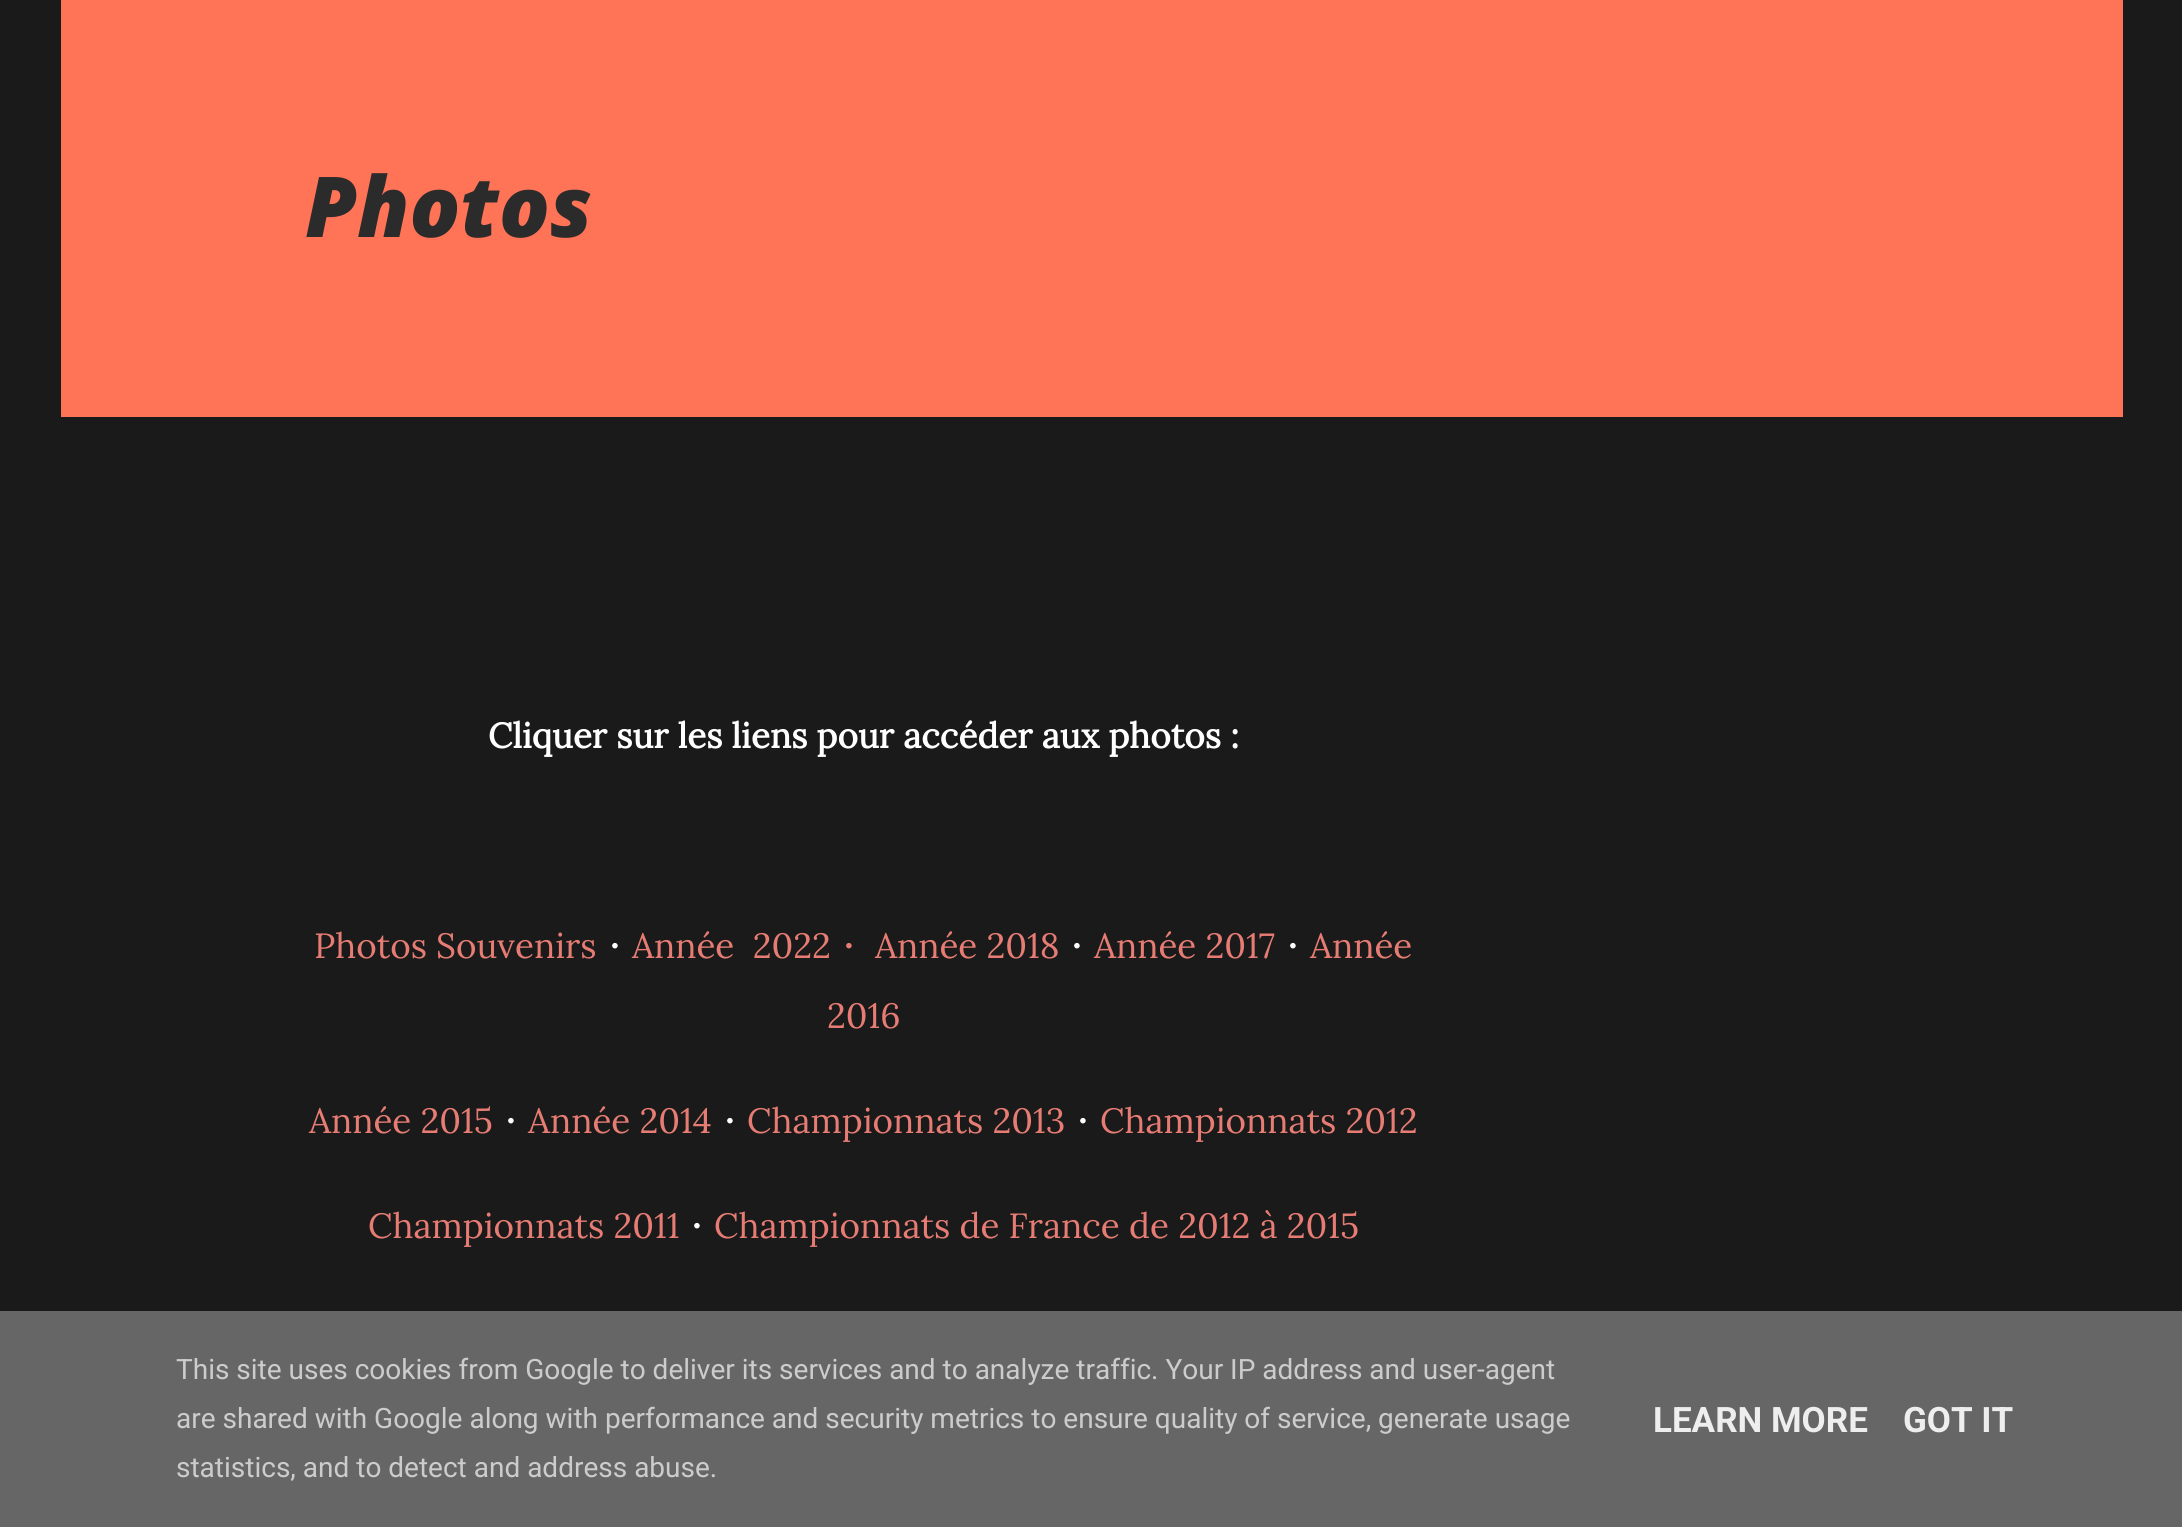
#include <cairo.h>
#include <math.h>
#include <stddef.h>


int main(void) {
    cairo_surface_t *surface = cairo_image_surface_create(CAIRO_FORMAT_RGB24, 2182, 1527);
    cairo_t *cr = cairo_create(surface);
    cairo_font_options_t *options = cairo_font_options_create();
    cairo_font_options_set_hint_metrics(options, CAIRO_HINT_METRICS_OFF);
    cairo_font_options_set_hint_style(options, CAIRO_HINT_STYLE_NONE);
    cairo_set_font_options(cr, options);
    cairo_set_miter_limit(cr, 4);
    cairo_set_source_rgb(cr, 0.102, 0.102, 0.102);
    cairo_paint(cr);
    cairo_set_source_rgb(cr, 1, 0.451, 0.341);
    cairo_rectangle(cr, 61, 0, 2062, 417);
    cairo_fill(cr);
    cairo_select_font_face(cr, "Open Sans ExtraBold", CAIRO_FONT_SLANT_ITALIC, CAIRO_FONT_WEIGHT_NORMAL);
    cairo_set_font_size(cr, 84);
    cairo_set_source_rgb(cr, 0.169, 0.169, 0.169);
    cairo_move_to(cr, 305, 237);
    cairo_show_text(cr, "Photos");
    cairo_select_font_face(cr, "Lora", CAIRO_FONT_SLANT_NORMAL, CAIRO_FONT_WEIGHT_BOLD);
    cairo_set_font_size(cr, 35);
    cairo_set_source_rgb(cr, 1, 1, 1);
    cairo_move_to(cr, 488, 748);
    cairo_show_text(cr, "Cliquer sur les liens pour accéder aux photos :");
    cairo_select_font_face(cr, "Lora", CAIRO_FONT_SLANT_NORMAL, CAIRO_FONT_WEIGHT_NORMAL);
    cairo_set_source_rgb(cr, 0.902, 0.486, 0.451);
    cairo_move_to(cr, 314, 958);
    cairo_show_text(cr, "Photos Souvenirs");
    cairo_select_font_face(cr, "WenQuanYi Zen Hei Medium", CAIRO_FONT_SLANT_NORMAL, CAIRO_FONT_WEIGHT_NORMAL);
    cairo_set_source_rgb(cr, 1, 1, 1);
    cairo_move_to(cr, 597, 958);
    cairo_show_text(cr, "・");
    cairo_select_font_face(cr, "Lora", CAIRO_FONT_SLANT_NORMAL, CAIRO_FONT_WEIGHT_NORMAL);
    cairo_set_source_rgb(cr, 0.902, 0.486, 0.451);
    cairo_move_to(cr, 632, 958);
    cairo_show_text(cr, "Année  2022");
    cairo_select_font_face(cr, "WenQuanYi Zen Hei Medium", CAIRO_FONT_SLANT_NORMAL, CAIRO_FONT_WEIGHT_NORMAL);
    cairo_move_to(cr, 831, 958);
    cairo_show_text(cr, "・");
    cairo_select_font_face(cr, "Lora", CAIRO_FONT_SLANT_NORMAL, CAIRO_FONT_WEIGHT_NORMAL);
    cairo_move_to(cr, 875, 958);
    cairo_show_text(cr, "Année 2018");
    cairo_select_font_face(cr, "WenQuanYi Zen Hei Medium", CAIRO_FONT_SLANT_NORMAL, CAIRO_FONT_WEIGHT_NORMAL);
    cairo_set_source_rgb(cr, 1, 1, 1);
    cairo_move_to(cr, 1059, 958);
    cairo_show_text(cr, "・");
    cairo_select_font_face(cr, "Lora", CAIRO_FONT_SLANT_NORMAL, CAIRO_FONT_WEIGHT_NORMAL);
    cairo_set_source_rgb(cr, 0.902, 0.486, 0.451);
    cairo_move_to(cr, 1094, 958);
    cairo_show_text(cr, "Année 2017");
    cairo_select_font_face(cr, "WenQuanYi Zen Hei Medium", CAIRO_FONT_SLANT_NORMAL, CAIRO_FONT_WEIGHT_NORMAL);
    cairo_set_source_rgb(cr, 1, 1, 1);
    cairo_move_to(cr, 1275, 958);
    cairo_show_text(cr, "・");
    cairo_select_font_face(cr, "Lora", CAIRO_FONT_SLANT_NORMAL, CAIRO_FONT_WEIGHT_NORMAL);
    cairo_set_source_rgb(cr, 0.902, 0.486, 0.451);
    cairo_move_to(cr, 1310, 958);
    cairo_show_text(cr, "Année");
    cairo_move_to(cr, 827, 1028);
    cairo_show_text(cr, "2016");
    cairo_move_to(cr, 309, 1133);
    cairo_show_text(cr, "Année 2015");
    cairo_select_font_face(cr, "WenQuanYi Zen Hei Medium", CAIRO_FONT_SLANT_NORMAL, CAIRO_FONT_WEIGHT_NORMAL);
    cairo_set_source_rgb(cr, 1, 1, 1);
    cairo_move_to(cr, 493, 1133);
    cairo_show_text(cr, "・");
    cairo_select_font_face(cr, "Lora", CAIRO_FONT_SLANT_NORMAL, CAIRO_FONT_WEIGHT_NORMAL);
    cairo_set_source_rgb(cr, 0.902, 0.486, 0.451);
    cairo_move_to(cr, 528, 1133);
    cairo_show_text(cr, "Année 2014");
    cairo_select_font_face(cr, "WenQuanYi Zen Hei Medium", CAIRO_FONT_SLANT_NORMAL, CAIRO_FONT_WEIGHT_NORMAL);
    cairo_set_source_rgb(cr, 1, 1, 1);
    cairo_move_to(cr, 712, 1133);
    cairo_show_text(cr, "・");
    cairo_select_font_face(cr, "Lora", CAIRO_FONT_SLANT_NORMAL, CAIRO_FONT_WEIGHT_NORMAL);
    cairo_set_source_rgb(cr, 0.902, 0.486, 0.451);
    cairo_move_to(cr, 747, 1133);
    cairo_show_text(cr, "Championnats 2013");
    cairo_select_font_face(cr, "WenQuanYi Zen Hei Medium", CAIRO_FONT_SLANT_NORMAL, CAIRO_FONT_WEIGHT_NORMAL);
    cairo_set_source_rgb(cr, 1, 1, 1);
    cairo_move_to(cr, 1065, 1133);
    cairo_show_text(cr, "・");
    cairo_select_font_face(cr, "Lora", CAIRO_FONT_SLANT_NORMAL, CAIRO_FONT_WEIGHT_NORMAL);
    cairo_set_source_rgb(cr, 0.902, 0.486, 0.451);
    cairo_move_to(cr, 1100, 1133);
    cairo_show_text(cr, "Championnats 2012");
    cairo_move_to(cr, 368, 1238);
    cairo_show_text(cr, "Championnats 2011");
    cairo_select_font_face(cr, "WenQuanYi Zen Hei Medium", CAIRO_FONT_SLANT_NORMAL, CAIRO_FONT_WEIGHT_NORMAL);
    cairo_set_source_rgb(cr, 1, 1, 1);
    cairo_move_to(cr, 679, 1238);
    cairo_show_text(cr, "・");
    cairo_select_font_face(cr, "Lora", CAIRO_FONT_SLANT_NORMAL, CAIRO_FONT_WEIGHT_NORMAL);
    cairo_set_source_rgb(cr, 0.902, 0.486, 0.451);
    cairo_move_to(cr, 714, 1238);
    cairo_show_text(cr, "Championnats de France de 2012 à 2015");
    cairo_set_source_rgb(cr, 0.4, 0.4, 0.4);
    cairo_rectangle(cr, 0, 1311, 2182, 216);
    cairo_fill(cr);
    cairo_select_font_face(cr, "Roboto", CAIRO_FONT_SLANT_NORMAL, CAIRO_FONT_WEIGHT_NORMAL);
    cairo_set_font_size(cr, 28);
    cairo_set_source_rgb(cr, 0.8, 0.8, 0.8);
    cairo_move_to(cr, 176, 1379);
    cairo_show_text(cr, "This site uses cookies from Google to deliver its services and to analyze traffic. Your IP address and user-agent");
    cairo_move_to(cr, 176, 1428);
    cairo_show_text(cr, "are shared with Google along with performance and security metrics to ensure quality of service, generate usage");
    cairo_move_to(cr, 176, 1477);
    cairo_show_text(cr, "statistics, and to detect and address abuse.");
    cairo_select_font_face(cr, "Roboto", CAIRO_FONT_SLANT_NORMAL, CAIRO_FONT_WEIGHT_BOLD);
    cairo_set_font_size(cr, 35);
    cairo_set_source_rgb(cr, 0.933, 0.933, 0.933);
    cairo_move_to(cr, 1653, 1432);
    cairo_show_text(cr, "LEARN MORE");
    cairo_move_to(cr, 1903, 1432);
    cairo_show_text(cr, "GOT IT");
    cairo_surface_write_to_png(surface, "page.png");
    cairo_font_options_destroy(options);
    cairo_destroy(cr);
    cairo_surface_destroy(surface);
    return 0;
}
